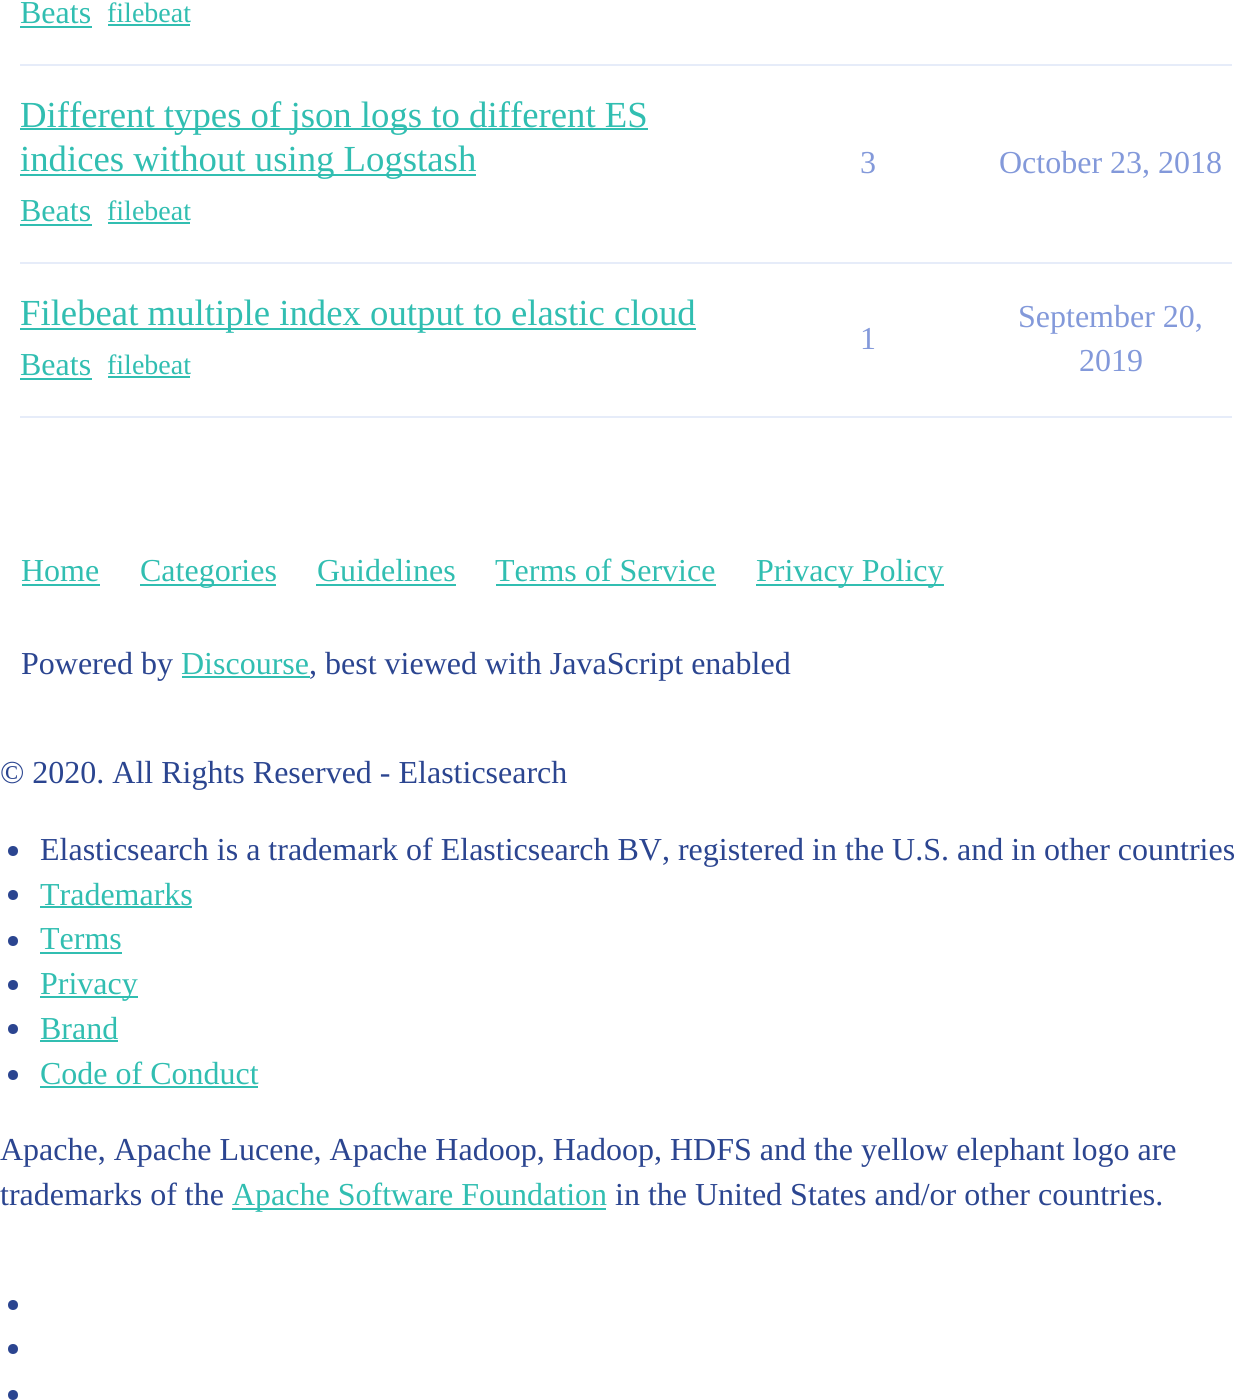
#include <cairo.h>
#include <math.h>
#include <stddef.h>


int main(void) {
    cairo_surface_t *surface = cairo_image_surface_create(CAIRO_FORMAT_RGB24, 1251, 1400);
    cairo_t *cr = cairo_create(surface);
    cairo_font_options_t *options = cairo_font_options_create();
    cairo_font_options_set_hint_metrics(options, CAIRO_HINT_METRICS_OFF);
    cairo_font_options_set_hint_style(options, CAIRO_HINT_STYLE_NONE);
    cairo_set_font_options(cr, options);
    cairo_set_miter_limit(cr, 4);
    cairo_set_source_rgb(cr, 1, 1, 1);
    cairo_paint(cr);
    cairo_set_source_rgb(cr, 0.902, 0.922, 0.973);
    cairo_rectangle(cr, 20, 64, 1212, 2);
    cairo_fill(cr);
    cairo_select_font_face(cr, "Liberation Serif", CAIRO_FONT_SLANT_NORMAL, CAIRO_FONT_WEIGHT_NORMAL);
    cairo_set_font_size(cr, 32);
    cairo_set_source_rgb(cr, 0.192, 0.745, 0.694);
    cairo_move_to(cr, 20, 23);
    cairo_show_text(cr, "Beats");
    cairo_rectangle(cr, 20, 26, 72, 2);
    cairo_fill(cr);
    cairo_set_font_size(cr, 28);
    cairo_move_to(cr, 107, 22);
    cairo_show_text(cr, "filebeat");
    cairo_rectangle(cr, 108, 24, 82, 2);
    cairo_fill(cr);
    cairo_set_source_rgb(cr, 0.902, 0.922, 0.973);
    cairo_rectangle(cr, 20, 262, 1212, 2);
    cairo_fill(cr);
    cairo_set_source_rgb(cr, 0.192, 0.745, 0.694);
    cairo_rectangle(cr, 20, 128, 628, 2);
    cairo_fill(cr);
    cairo_set_font_size(cr, 36.75);
    cairo_move_to(cr, 20, 127);
    cairo_show_text(cr, "Different types of json logs to different ES");
    cairo_rectangle(cr, 20, 174, 456, 2);
    cairo_fill(cr);
    cairo_move_to(cr, 20, 171);
    cairo_show_text(cr, "indices without using Logstash");
    cairo_set_font_size(cr, 32);
    cairo_move_to(cr, 20, 221);
    cairo_show_text(cr, "Beats");
    cairo_rectangle(cr, 20, 224, 72, 2);
    cairo_fill(cr);
    cairo_set_font_size(cr, 28);
    cairo_move_to(cr, 107, 220);
    cairo_show_text(cr, "filebeat");
    cairo_rectangle(cr, 108, 222, 82, 2);
    cairo_fill(cr);
    cairo_set_font_size(cr, 32);
    cairo_set_source_rgb(cr, 0.514, 0.6, 0.855);
    cairo_move_to(cr, 860, 173);
    cairo_show_text(cr, "3");
    cairo_move_to(cr, 999, 173);
    cairo_show_text(cr, "October 23, 2018");
    cairo_set_source_rgb(cr, 0.902, 0.922, 0.973);
    cairo_rectangle(cr, 20, 416, 1212, 2);
    cairo_fill(cr);
    cairo_set_source_rgb(cr, 0.192, 0.745, 0.694);
    cairo_rectangle(cr, 20, 328, 676, 2);
    cairo_fill(cr);
    cairo_set_font_size(cr, 36.75);
    cairo_move_to(cr, 20, 325);
    cairo_show_text(cr, "Filebeat multiple index output to elastic cloud");
    cairo_set_font_size(cr, 32);
    cairo_move_to(cr, 20, 375);
    cairo_show_text(cr, "Beats");
    cairo_rectangle(cr, 20, 378, 72, 2);
    cairo_fill(cr);
    cairo_set_font_size(cr, 28);
    cairo_move_to(cr, 107, 374);
    cairo_show_text(cr, "filebeat");
    cairo_rectangle(cr, 108, 376, 82, 2);
    cairo_fill(cr);
    cairo_set_font_size(cr, 32);
    cairo_set_source_rgb(cr, 0.514, 0.6, 0.855);
    cairo_move_to(cr, 860, 349);
    cairo_show_text(cr, "1");
    cairo_move_to(cr, 1018, 327);
    cairo_show_text(cr, "September 20,");
    cairo_move_to(cr, 1079, 371);
    cairo_show_text(cr, "2019");
    cairo_set_source_rgb(cr, 0.192, 0.745, 0.694);
    cairo_move_to(cr, 21, 581);
    cairo_show_text(cr, "Home");
    cairo_rectangle(cr, 22, 584, 78, 2);
    cairo_fill(cr);
    cairo_rectangle(cr, 140, 584, 136, 2);
    cairo_fill(cr);
    cairo_move_to(cr, 140, 581);
    cairo_show_text(cr, "Categories");
    cairo_move_to(cr, 317, 581);
    cairo_show_text(cr, "Guidelines");
    cairo_rectangle(cr, 316, 584, 140, 2);
    cairo_fill(cr);
    cairo_move_to(cr, 495, 581);
    cairo_show_text(cr, "Terms of Service");
    cairo_rectangle(cr, 496, 584, 220, 2);
    cairo_fill(cr);
    cairo_rectangle(cr, 756, 584, 188, 2);
    cairo_fill(cr);
    cairo_move_to(cr, 756, 581);
    cairo_show_text(cr, "Privacy Policy");
    cairo_set_source_rgb(cr, 0.169, 0.271, 0.565);
    cairo_move_to(cr, 21, 674);
    cairo_show_text(cr, "Powered by");
    cairo_set_source_rgb(cr, 0.192, 0.745, 0.694);
    cairo_move_to(cr, 181, 674);
    cairo_show_text(cr, "Discourse");
    cairo_rectangle(cr, 182, 676, 128, 2);
    cairo_fill(cr);
    cairo_set_source_rgb(cr, 0.169, 0.271, 0.565);
    cairo_move_to(cr, 309, 674);
    cairo_show_text(cr, ", best viewed with JavaScript enabled");
    cairo_move_to(cr, 0, 783);
    cairo_show_text(cr, "© 2020. All Rights Reserved - Elasticsearch");
    cairo_new_path(cr);
    cairo_arc(cr, 13, 851, 5, 0, 2 * M_PI);
    cairo_fill(cr);
    cairo_move_to(cr, 40, 860);
    cairo_show_text(cr, "Elasticsearch is a trademark of Elasticsearch BV, registered in the U.S. and in other countries");
    cairo_new_path(cr);
    cairo_arc(cr, 13, 895, 5, 0, 2 * M_PI);
    cairo_fill(cr);
    cairo_set_source_rgb(cr, 0.192, 0.745, 0.694);
    cairo_move_to(cr, 40, 905);
    cairo_show_text(cr, "Trademarks");
    cairo_rectangle(cr, 40, 906, 152, 2);
    cairo_fill(cr);
    cairo_set_source_rgb(cr, 0.169, 0.271, 0.565);
    cairo_arc(cr, 13, 941, 5, 0, 2 * M_PI);
    cairo_fill(cr);
    cairo_set_source_rgb(cr, 0.192, 0.745, 0.694);
    cairo_move_to(cr, 40, 949);
    cairo_show_text(cr, "Terms");
    cairo_rectangle(cr, 40, 952, 82, 2);
    cairo_fill(cr);
    cairo_set_source_rgb(cr, 0.169, 0.271, 0.565);
    cairo_arc(cr, 13, 985, 5, 0, 2 * M_PI);
    cairo_fill(cr);
    cairo_set_source_rgb(cr, 0.192, 0.745, 0.694);
    cairo_rectangle(cr, 40, 996, 98, 2);
    cairo_fill(cr);
    cairo_move_to(cr, 40, 994);
    cairo_show_text(cr, "Privacy");
    cairo_set_source_rgb(cr, 0.169, 0.271, 0.565);
    cairo_new_path(cr);
    cairo_arc(cr, 13, 1029, 5, 0, 2 * M_PI);
    cairo_fill(cr);
    cairo_set_source_rgb(cr, 0.192, 0.745, 0.694);
    cairo_move_to(cr, 40, 1039);
    cairo_show_text(cr, "Brand");
    cairo_rectangle(cr, 40, 1040, 78, 2);
    cairo_fill(cr);
    cairo_set_source_rgb(cr, 0.169, 0.271, 0.565);
    cairo_arc(cr, 13, 1075, 5, 0, 2 * M_PI);
    cairo_fill(cr);
    cairo_set_source_rgb(cr, 0.192, 0.745, 0.694);
    cairo_move_to(cr, 40, 1084);
    cairo_show_text(cr, "Code of Conduct");
    cairo_rectangle(cr, 40, 1086, 218, 2);
    cairo_fill(cr);
    cairo_set_source_rgb(cr, 0.169, 0.271, 0.565);
    cairo_move_to(cr, 0, 1160);
    cairo_show_text(cr, "Apache, Apache Lucene, Apache Hadoop, Hadoop, HDFS and the yellow elephant logo are");
    cairo_move_to(cr, 0, 1205);
    cairo_show_text(cr, "trademarks of the");
    cairo_set_source_rgb(cr, 0.192, 0.745, 0.694);
    cairo_rectangle(cr, 232, 1208, 374, 2);
    cairo_fill(cr);
    cairo_move_to(cr, 232, 1205);
    cairo_show_text(cr, "Apache Software Foundation");
    cairo_set_source_rgb(cr, 0.169, 0.271, 0.565);
    cairo_move_to(cr, 615, 1205);
    cairo_show_text(cr, "in the United States and/or other countries.");
    cairo_new_path(cr);
    cairo_arc(cr, 13, 1305, 5, 0, 2 * M_PI);
    cairo_fill(cr);
    cairo_arc(cr, 13, 1349, 5, 0, 2 * M_PI);
    cairo_fill(cr);
    cairo_arc(cr, 13, 1395, 5, 0, 2 * M_PI);
    cairo_fill(cr);
    cairo_surface_write_to_png(surface, "page.png");
    cairo_font_options_destroy(options);
    cairo_destroy(cr);
    cairo_surface_destroy(surface);
    return 0;
}
